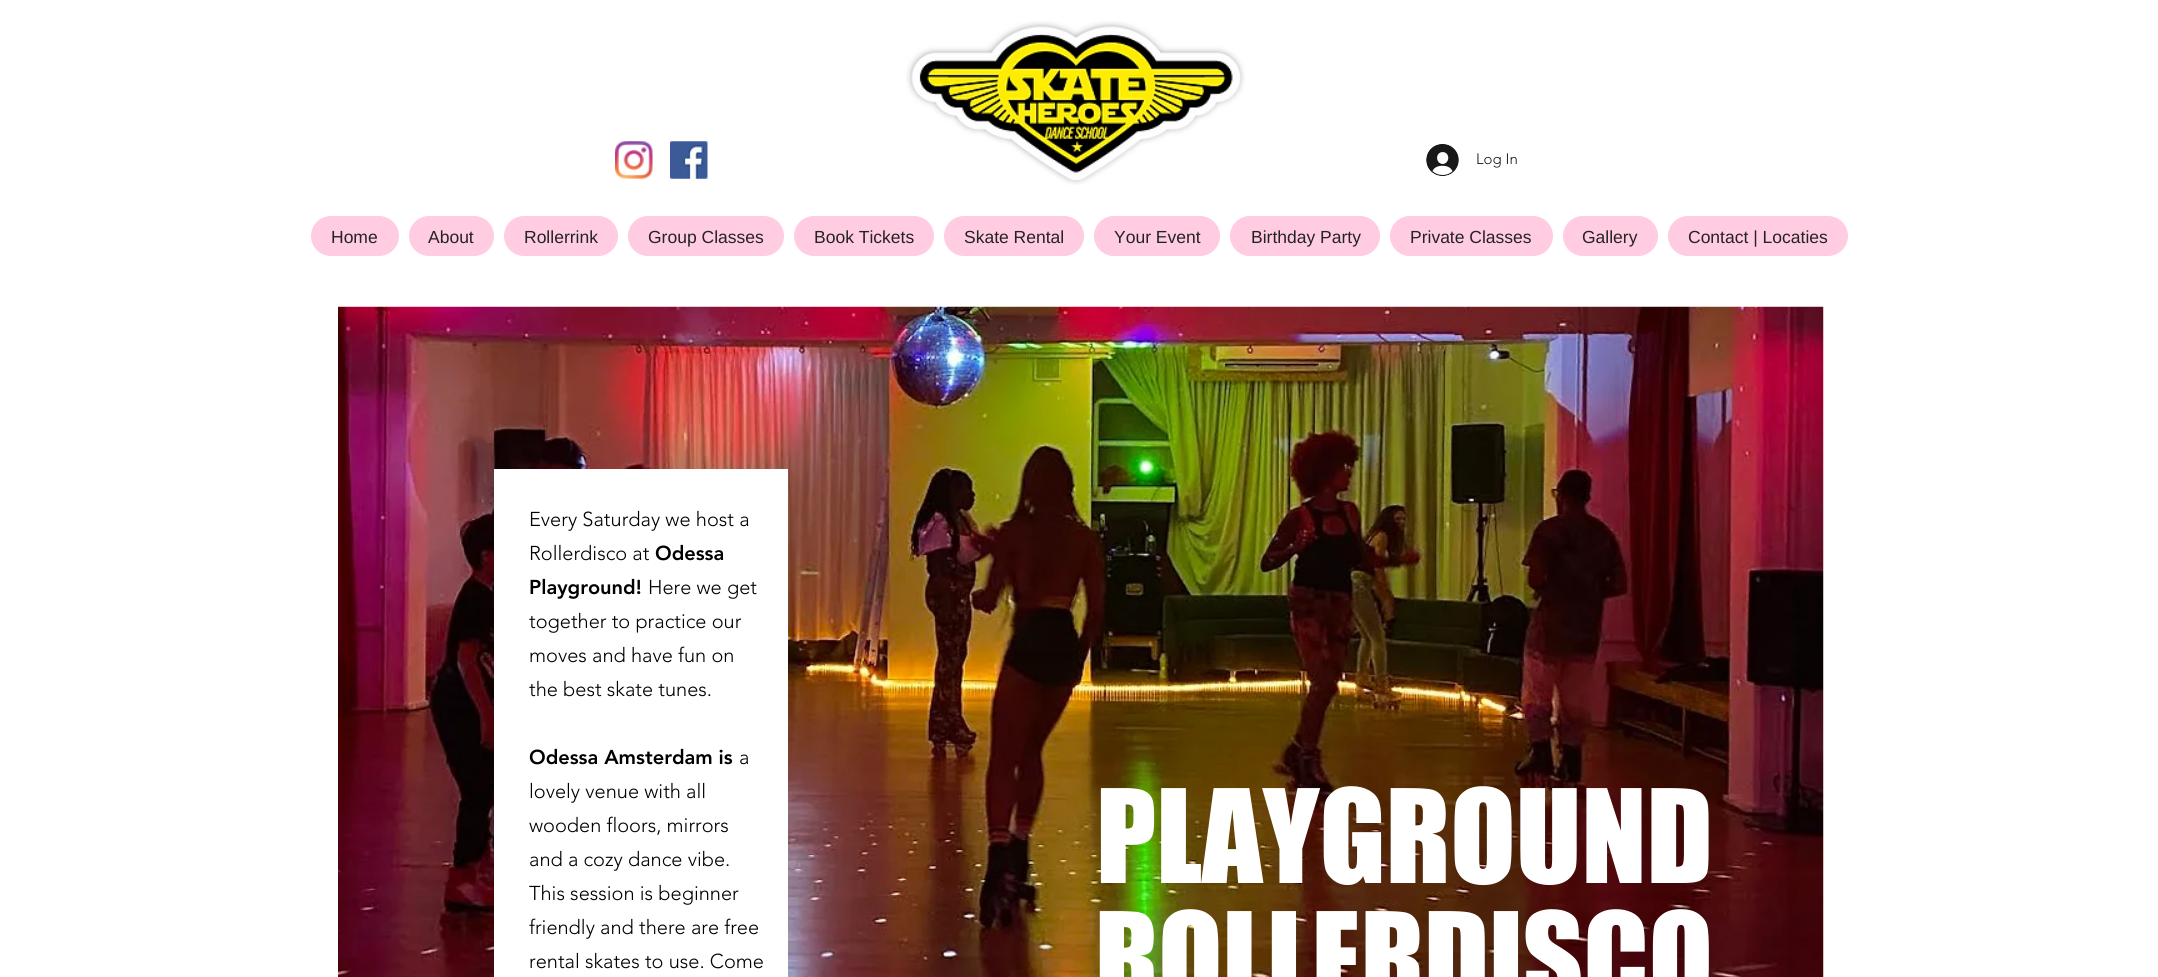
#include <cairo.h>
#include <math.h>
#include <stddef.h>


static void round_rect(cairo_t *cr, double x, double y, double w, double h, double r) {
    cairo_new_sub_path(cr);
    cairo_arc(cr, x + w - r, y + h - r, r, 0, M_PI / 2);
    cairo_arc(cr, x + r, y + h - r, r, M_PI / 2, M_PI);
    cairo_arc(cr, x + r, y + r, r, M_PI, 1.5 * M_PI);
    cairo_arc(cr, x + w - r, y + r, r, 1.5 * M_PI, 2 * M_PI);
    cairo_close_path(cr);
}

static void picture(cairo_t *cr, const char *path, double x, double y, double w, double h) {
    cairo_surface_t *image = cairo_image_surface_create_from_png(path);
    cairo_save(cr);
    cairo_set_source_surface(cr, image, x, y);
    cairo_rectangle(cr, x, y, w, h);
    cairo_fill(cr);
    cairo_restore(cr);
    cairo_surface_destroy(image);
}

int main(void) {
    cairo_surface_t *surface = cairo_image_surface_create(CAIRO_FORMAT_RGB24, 2158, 977);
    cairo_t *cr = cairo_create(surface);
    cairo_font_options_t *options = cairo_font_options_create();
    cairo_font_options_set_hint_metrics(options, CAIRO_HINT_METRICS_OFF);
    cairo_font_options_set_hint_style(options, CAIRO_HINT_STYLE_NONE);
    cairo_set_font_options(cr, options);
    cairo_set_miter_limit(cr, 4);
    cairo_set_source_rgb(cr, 1, 1, 1);
    cairo_paint(cr);
    picture(cr, "img1.png", 615, 141, 38, 38);
    picture(cr, "img2.png", 670, 141, 38, 38);
    picture(cr, "img3.png", 906, 21, 339, 164);
    picture(cr, "img4.png", 1426, 144, 33, 32);
    cairo_select_font_face(cr, "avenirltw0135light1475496 Light", CAIRO_FONT_SLANT_NORMAL, CAIRO_FONT_WEIGHT_NORMAL);
    cairo_set_font_size(cr, 15);
    cairo_set_source_rgb(cr, 0.094, 0.094, 0.094);
    cairo_move_to(cr, 1476, 164);
    cairo_show_text(cr, "Log In");
    cairo_set_source_rgb(cr, 1, 0.8, 0.886);
    round_rect(cr, 311, 216, 88, 40, 20);
    cairo_fill(cr);
    cairo_select_font_face(cr, "Liberation Sans", CAIRO_FONT_SLANT_NORMAL, CAIRO_FONT_WEIGHT_NORMAL);
    cairo_set_font_size(cr, 17.5);
    cairo_set_source_rgb(cr, 0.141, 0.137, 0.137);
    cairo_move_to(cr, 331, 243);
    cairo_show_text(cr, "Home");
    cairo_set_source_rgb(cr, 1, 0.8, 0.886);
    round_rect(cr, 409, 216, 85, 40, 20);
    cairo_fill(cr);
    cairo_set_source_rgb(cr, 0.141, 0.137, 0.137);
    cairo_move_to(cr, 428, 243);
    cairo_show_text(cr, "About");
    cairo_set_source_rgb(cr, 1, 0.8, 0.886);
    round_rect(cr, 504, 216, 114, 40, 20);
    cairo_fill(cr);
    cairo_set_source_rgb(cr, 0.141, 0.137, 0.137);
    cairo_move_to(cr, 524, 243);
    cairo_show_text(cr, "Rollerrink");
    cairo_set_source_rgb(cr, 1, 0.8, 0.886);
    round_rect(cr, 628, 216, 156, 40, 20);
    cairo_fill(cr);
    cairo_set_source_rgb(cr, 0.141, 0.137, 0.137);
    cairo_move_to(cr, 648, 243);
    cairo_show_text(cr, "Group Classes");
    cairo_set_source_rgb(cr, 1, 0.8, 0.886);
    round_rect(cr, 794, 216, 140, 40, 20);
    cairo_fill(cr);
    cairo_set_source_rgb(cr, 0.141, 0.137, 0.137);
    cairo_move_to(cr, 814, 243);
    cairo_show_text(cr, "Book Tickets");
    cairo_set_source_rgb(cr, 1, 0.8, 0.886);
    round_rect(cr, 944, 216, 140, 40, 20);
    cairo_fill(cr);
    cairo_set_source_rgb(cr, 0.141, 0.137, 0.137);
    cairo_move_to(cr, 964, 243);
    cairo_show_text(cr, "Skate Rental");
    cairo_set_source_rgb(cr, 1, 0.8, 0.886);
    round_rect(cr, 1094, 216, 126, 40, 20);
    cairo_fill(cr);
    cairo_set_source_rgb(cr, 0.141, 0.137, 0.137);
    cairo_move_to(cr, 1114, 243);
    cairo_show_text(cr, "Your Event");
    cairo_set_source_rgb(cr, 1, 0.8, 0.886);
    round_rect(cr, 1230, 216, 150, 40, 20);
    cairo_fill(cr);
    cairo_set_source_rgb(cr, 0.141, 0.137, 0.137);
    cairo_move_to(cr, 1251, 243);
    cairo_show_text(cr, "Birthday Party");
    cairo_set_source_rgb(cr, 1, 0.8, 0.886);
    round_rect(cr, 1390, 216, 163, 40, 20);
    cairo_fill(cr);
    cairo_set_source_rgb(cr, 0.141, 0.137, 0.137);
    cairo_move_to(cr, 1410, 243);
    cairo_show_text(cr, "Private Classes");
    cairo_set_source_rgb(cr, 1, 0.8, 0.886);
    round_rect(cr, 1563, 216, 95, 40, 20);
    cairo_fill(cr);
    cairo_set_source_rgb(cr, 0.141, 0.137, 0.137);
    cairo_move_to(cr, 1582, 243);
    cairo_show_text(cr, "Gallery");
    cairo_set_source_rgb(cr, 1, 0.8, 0.886);
    round_rect(cr, 1668, 216, 180, 40, 20);
    cairo_fill(cr);
    cairo_set_source_rgb(cr, 0.141, 0.137, 0.137);
    cairo_move_to(cr, 1688, 243);
    cairo_show_text(cr, "Contact | Locaties");
    picture(cr, "img5.png", 338, 306, 1486, 671);
    cairo_set_source_rgb(cr, 1, 1, 1);
    cairo_rectangle(cr, 494, 469, 294, 508);
    cairo_fill(cr);
    cairo_select_font_face(cr, "avenirltw0135light1475496 Light", CAIRO_FONT_SLANT_NORMAL, CAIRO_FONT_WEIGHT_NORMAL);
    cairo_set_font_size(cr, 20);
    cairo_set_source_rgb(cr, 0, 0, 0);
    cairo_move_to(cr, 529, 526);
    cairo_show_text(cr, "Every Saturday we host a");
    cairo_move_to(cr, 529, 560);
    cairo_show_text(cr, "Rollerdisco at");
    cairo_select_font_face(cr, "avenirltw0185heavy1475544 Black", CAIRO_FONT_SLANT_NORMAL, CAIRO_FONT_WEIGHT_NORMAL);
    cairo_move_to(cr, 655, 560);
    cairo_show_text(cr, "Odessa");
    cairo_move_to(cr, 529, 594);
    cairo_show_text(cr, "Playground!");
    cairo_select_font_face(cr, "avenirltw0135light1475496 Light", CAIRO_FONT_SLANT_NORMAL, CAIRO_FONT_WEIGHT_NORMAL);
    cairo_move_to(cr, 648, 594);
    cairo_show_text(cr, "Here we get");
    cairo_move_to(cr, 529, 628);
    cairo_show_text(cr, "together to practice our");
    cairo_move_to(cr, 529, 662);
    cairo_show_text(cr, "moves and have fun on");
    cairo_move_to(cr, 529, 696);
    cairo_show_text(cr, "the best skate tunes.");
    cairo_select_font_face(cr, "avenirltw0185heavy1475544 Black", CAIRO_FONT_SLANT_NORMAL, CAIRO_FONT_WEIGHT_NORMAL);
    cairo_move_to(cr, 529, 764);
    cairo_show_text(cr, "Odessa Amsterdam is");
    cairo_select_font_face(cr, "avenirltw0135light1475496 Light", CAIRO_FONT_SLANT_NORMAL, CAIRO_FONT_WEIGHT_NORMAL);
    cairo_move_to(cr, 739, 764);
    cairo_show_text(cr, "a");
    cairo_move_to(cr, 529, 798);
    cairo_show_text(cr, "lovely venue with all");
    cairo_move_to(cr, 529, 832);
    cairo_show_text(cr, "wooden floors, mirrors");
    cairo_move_to(cr, 529, 866);
    cairo_show_text(cr, "and a cozy dance vibe.");
    cairo_move_to(cr, 529, 900);
    cairo_show_text(cr, "This session is beginner");
    cairo_move_to(cr, 529, 934);
    cairo_show_text(cr, "friendly and there are free");
    cairo_move_to(cr, 529, 968);
    cairo_show_text(cr, "rental skates to use. Come");
    cairo_select_font_face(cr, "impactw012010", CAIRO_FONT_SLANT_NORMAL, CAIRO_FONT_WEIGHT_NORMAL);
    cairo_set_font_size(cr, 120);
    cairo_set_source_rgb(cr, 1, 1, 1);
    cairo_move_to(cr, 1096, 883);
    cairo_show_text(cr, "PLAYGROUND");
    cairo_set_font_size(cr, 117.5);
    cairo_move_to(cr, 1095, 1004);
    cairo_show_text(cr, "ROLLERDISCO");
    cairo_surface_write_to_png(surface, "page.png");
    cairo_font_options_destroy(options);
    cairo_destroy(cr);
    cairo_surface_destroy(surface);
    return 0;
}
